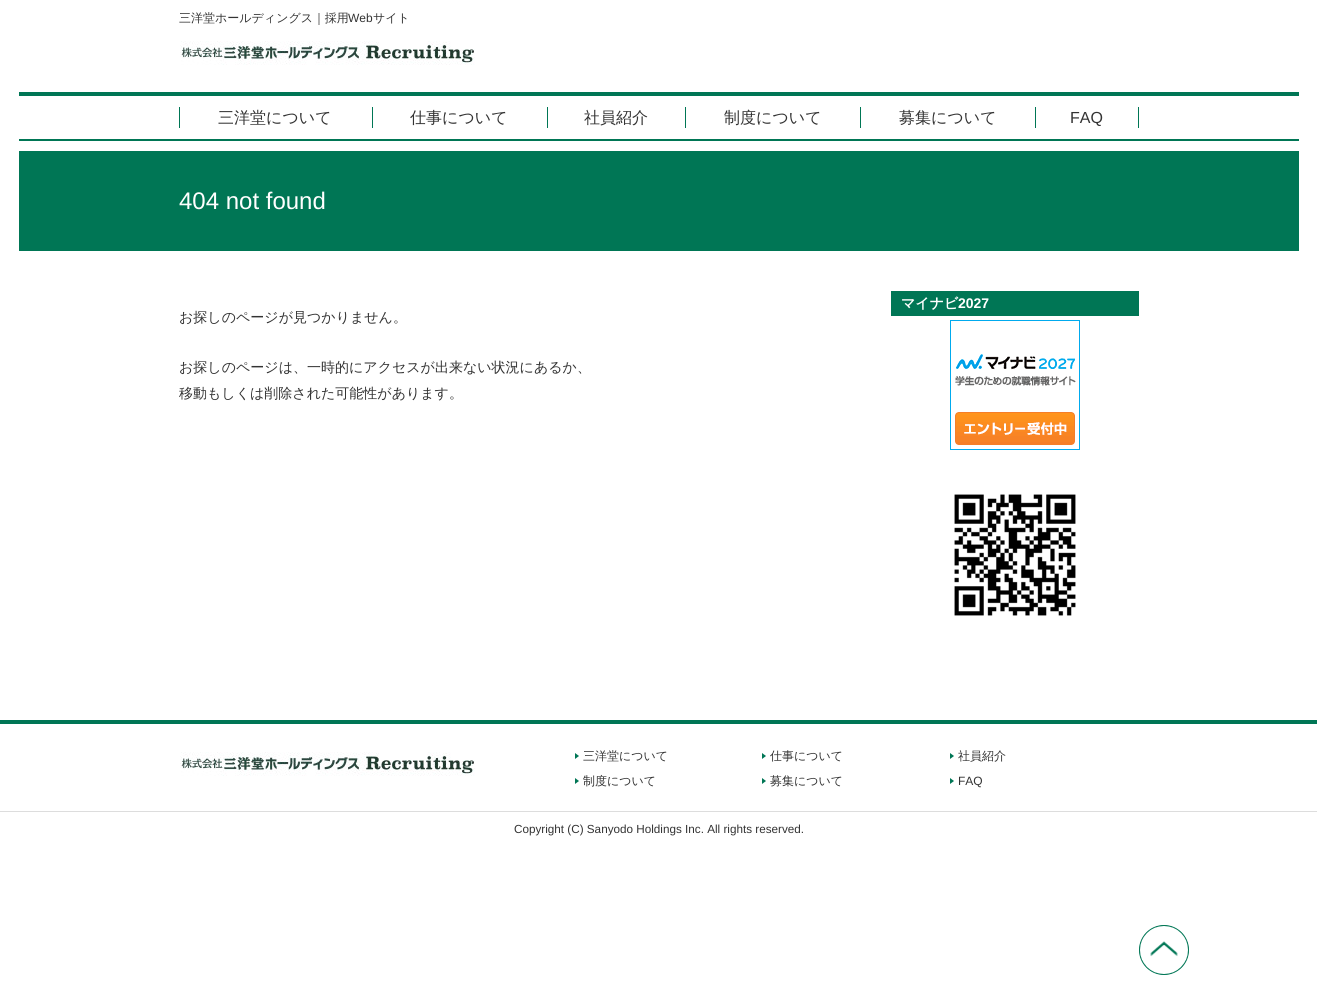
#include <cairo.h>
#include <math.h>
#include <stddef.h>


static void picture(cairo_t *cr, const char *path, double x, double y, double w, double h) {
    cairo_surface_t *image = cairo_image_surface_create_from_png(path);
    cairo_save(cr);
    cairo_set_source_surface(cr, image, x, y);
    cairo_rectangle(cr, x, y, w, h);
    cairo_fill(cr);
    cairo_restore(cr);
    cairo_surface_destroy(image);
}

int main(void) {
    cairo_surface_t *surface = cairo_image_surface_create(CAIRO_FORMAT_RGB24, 1317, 985);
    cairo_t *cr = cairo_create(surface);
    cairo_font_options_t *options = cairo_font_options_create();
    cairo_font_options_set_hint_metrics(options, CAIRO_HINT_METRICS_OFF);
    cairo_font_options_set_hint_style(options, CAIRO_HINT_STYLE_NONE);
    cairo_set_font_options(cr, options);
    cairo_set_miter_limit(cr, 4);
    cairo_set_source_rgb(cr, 1, 1, 1);
    cairo_paint(cr);
    cairo_select_font_face(cr, "WenQuanYi Zen Hei Medium", CAIRO_FONT_SLANT_NORMAL, CAIRO_FONT_WEIGHT_NORMAL);
    cairo_set_font_size(cr, 12);
    cairo_set_source_rgb(cr, 0.2, 0.2, 0.2);
    cairo_move_to(cr, 179, 22);
    cairo_show_text(cr, "三洋堂ホールディングス｜採用");
    cairo_select_font_face(cr, "Liberation Sans", CAIRO_FONT_SLANT_NORMAL, CAIRO_FONT_WEIGHT_NORMAL);
    cairo_move_to(cr, 348, 22);
    cairo_show_text(cr, "Web");
    cairo_select_font_face(cr, "WenQuanYi Zen Hei Medium", CAIRO_FONT_SLANT_NORMAL, CAIRO_FONT_WEIGHT_NORMAL);
    cairo_move_to(cr, 373, 22);
    cairo_show_text(cr, "サイト");
    picture(cr, "img1.png", 180, 41, 295, 24);
    cairo_set_source_rgb(cr, 0, 0.463, 0.333);
    cairo_rectangle(cr, 19, 92, 1280, 4);
    cairo_fill(cr);
    cairo_rectangle(cr, 19, 139, 1280, 2);
    cairo_fill(cr);
    cairo_rectangle(cr, 179, 107, 1, 21);
    cairo_fill(cr);
    cairo_set_font_size(cr, 16);
    cairo_set_source_rgb(cr, 0.2, 0.2, 0.2);
    cairo_move_to(cr, 218, 123);
    cairo_show_text(cr, "三洋堂について");
    cairo_set_source_rgb(cr, 0, 0.463, 0.333);
    cairo_rectangle(cr, 372, 107, 1, 21);
    cairo_fill(cr);
    cairo_set_source_rgb(cr, 0.2, 0.2, 0.2);
    cairo_move_to(cr, 410, 123);
    cairo_show_text(cr, "仕事について");
    cairo_set_source_rgb(cr, 0, 0.463, 0.333);
    cairo_rectangle(cr, 547, 107, 1, 21);
    cairo_fill(cr);
    cairo_set_source_rgb(cr, 0.2, 0.2, 0.2);
    cairo_move_to(cr, 584, 123);
    cairo_show_text(cr, "社員紹介");
    cairo_set_source_rgb(cr, 0, 0.463, 0.333);
    cairo_rectangle(cr, 685, 107, 1, 21);
    cairo_fill(cr);
    cairo_set_source_rgb(cr, 0.2, 0.2, 0.2);
    cairo_move_to(cr, 724, 123);
    cairo_show_text(cr, "制度について");
    cairo_set_source_rgb(cr, 0, 0.463, 0.333);
    cairo_rectangle(cr, 860, 107, 1, 21);
    cairo_fill(cr);
    cairo_set_source_rgb(cr, 0.2, 0.2, 0.2);
    cairo_move_to(cr, 899, 123);
    cairo_show_text(cr, "募集について");
    cairo_set_source_rgb(cr, 0, 0.463, 0.333);
    cairo_rectangle(cr, 1035, 107, 1, 21);
    cairo_fill(cr);
    cairo_select_font_face(cr, "Liberation Sans", CAIRO_FONT_SLANT_NORMAL, CAIRO_FONT_WEIGHT_NORMAL);
    cairo_set_source_rgb(cr, 0.2, 0.2, 0.2);
    cairo_move_to(cr, 1070, 123);
    cairo_show_text(cr, "FAQ");
    cairo_set_source_rgb(cr, 0, 0.463, 0.333);
    cairo_rectangle(cr, 1138, 107, 1, 21);
    cairo_fill(cr);
    cairo_rectangle(cr, 19, 151, 1280, 100);
    cairo_fill(cr);
    cairo_set_font_size(cr, 24);
    cairo_set_source_rgb(cr, 1, 1, 1);
    cairo_move_to(cr, 179, 209);
    cairo_show_text(cr, "404 not found");
    cairo_set_source_rgb(cr, 0, 0.463, 0.333);
    cairo_rectangle(cr, 891, 291, 248, 25);
    cairo_fill(cr);
    cairo_select_font_face(cr, "WenQuanYi Zen Hei", CAIRO_FONT_SLANT_NORMAL, CAIRO_FONT_WEIGHT_BOLD);
    cairo_set_font_size(cr, 14);
    cairo_set_source_rgb(cr, 1, 1, 1);
    cairo_move_to(cr, 901, 308);
    cairo_show_text(cr, "マイナビ");
    cairo_select_font_face(cr, "Liberation Sans", CAIRO_FONT_SLANT_NORMAL, CAIRO_FONT_WEIGHT_BOLD);
    cairo_move_to(cr, 958, 308);
    cairo_show_text(cr, "2027");
    picture(cr, "img2.png", 950, 320, 130, 130);
    picture(cr, "img3.png", 954, 494, 122, 122);
    cairo_select_font_face(cr, "WenQuanYi Zen Hei Medium", CAIRO_FONT_SLANT_NORMAL, CAIRO_FONT_WEIGHT_NORMAL);
    cairo_set_source_rgb(cr, 0.2, 0.2, 0.2);
    cairo_move_to(cr, 179, 322);
    cairo_show_text(cr, "お探しのページが見つかりません。");
    cairo_move_to(cr, 179, 372);
    cairo_show_text(cr, "お探しのページは、一時的にアクセスが出来ない状況にあるか、");
    cairo_move_to(cr, 179, 398);
    cairo_show_text(cr, "移動もしくは削除された可能性があります。");
    cairo_set_source_rgb(cr, 0, 0.463, 0.333);
    cairo_rectangle(cr, 0, 720, 1317, 4);
    cairo_fill(cr);
    picture(cr, "img1.png", 180, 752, 295, 24);
    cairo_new_path(cr);
    cairo_move_to(cr, 575, 759);
    cairo_line_to(cr, 575, 753);
    cairo_line_to(cr, 579, 756);
    cairo_close_path(cr);
    cairo_fill(cr);
    cairo_set_font_size(cr, 12);
    cairo_set_source_rgb(cr, 0.2, 0.2, 0.2);
    cairo_move_to(cr, 583, 760);
    cairo_show_text(cr, "三洋堂について");
    cairo_set_source_rgb(cr, 0, 0.463, 0.333);
    cairo_new_path(cr);
    cairo_move_to(cr, 762, 759);
    cairo_line_to(cr, 762, 753);
    cairo_line_to(cr, 766, 756);
    cairo_close_path(cr);
    cairo_fill(cr);
    cairo_set_source_rgb(cr, 0.2, 0.2, 0.2);
    cairo_move_to(cr, 770, 760);
    cairo_show_text(cr, "仕事について");
    cairo_set_source_rgb(cr, 0, 0.463, 0.333);
    cairo_new_path(cr);
    cairo_move_to(cr, 950, 759);
    cairo_line_to(cr, 950, 753);
    cairo_line_to(cr, 954, 756);
    cairo_close_path(cr);
    cairo_fill(cr);
    cairo_set_source_rgb(cr, 0.2, 0.2, 0.2);
    cairo_move_to(cr, 958, 760);
    cairo_show_text(cr, "社員紹介");
    cairo_set_source_rgb(cr, 0, 0.463, 0.333);
    cairo_new_path(cr);
    cairo_move_to(cr, 575, 784);
    cairo_line_to(cr, 575, 778);
    cairo_line_to(cr, 579, 781);
    cairo_close_path(cr);
    cairo_fill(cr);
    cairo_set_source_rgb(cr, 0.2, 0.2, 0.2);
    cairo_move_to(cr, 583, 785);
    cairo_show_text(cr, "制度について");
    cairo_set_source_rgb(cr, 0, 0.463, 0.333);
    cairo_new_path(cr);
    cairo_move_to(cr, 762, 784);
    cairo_line_to(cr, 762, 778);
    cairo_line_to(cr, 766, 781);
    cairo_close_path(cr);
    cairo_fill(cr);
    cairo_set_source_rgb(cr, 0.2, 0.2, 0.2);
    cairo_move_to(cr, 770, 785);
    cairo_show_text(cr, "募集について");
    cairo_set_source_rgb(cr, 0, 0.463, 0.333);
    cairo_new_path(cr);
    cairo_move_to(cr, 950, 784);
    cairo_line_to(cr, 950, 778);
    cairo_line_to(cr, 954, 781);
    cairo_close_path(cr);
    cairo_fill(cr);
    cairo_select_font_face(cr, "Liberation Sans", CAIRO_FONT_SLANT_NORMAL, CAIRO_FONT_WEIGHT_NORMAL);
    cairo_set_source_rgb(cr, 0.2, 0.2, 0.2);
    cairo_move_to(cr, 958, 785);
    cairo_show_text(cr, "FAQ");
    cairo_set_source_rgb(cr, 0.867, 0.867, 0.867);
    cairo_rectangle(cr, 0, 811, 1317, 1);
    cairo_fill(cr);
    cairo_set_font_size(cr, 11.7);
    cairo_set_source_rgb(cr, 0.2, 0.2, 0.2);
    cairo_move_to(cr, 514, 833);
    cairo_show_text(cr, "Copyright (C) Sanyodo Holdings Inc. All rights reserved.");
    cairo_set_source_rgb(cr, 0, 0.463, 0.333);
    cairo_new_path(cr);
    cairo_arc(cr, 1164, 950, 24.5, 0, 2 * M_PI);
    cairo_fill_preserve(cr);
    cairo_set_line_width(cr, 1);
    cairo_stroke(cr);
    picture(cr, "img4.png", 1140, 926, 48, 48);
    cairo_surface_write_to_png(surface, "page.png");
    cairo_font_options_destroy(options);
    cairo_destroy(cr);
    cairo_surface_destroy(surface);
    return 0;
}
